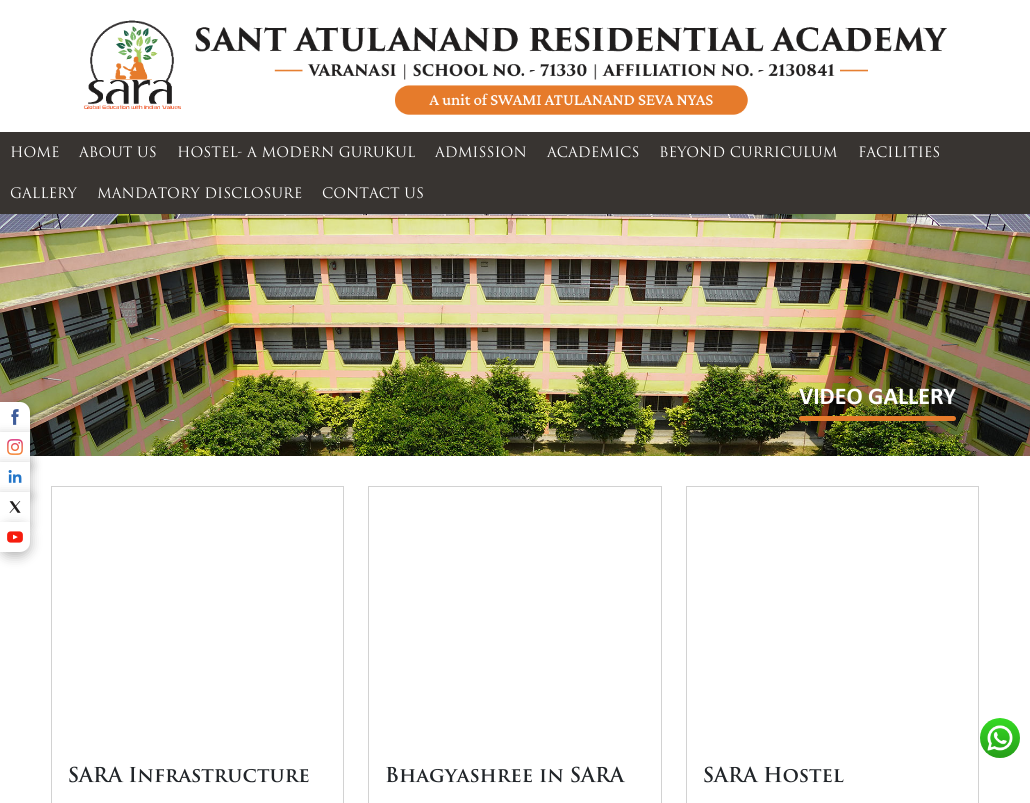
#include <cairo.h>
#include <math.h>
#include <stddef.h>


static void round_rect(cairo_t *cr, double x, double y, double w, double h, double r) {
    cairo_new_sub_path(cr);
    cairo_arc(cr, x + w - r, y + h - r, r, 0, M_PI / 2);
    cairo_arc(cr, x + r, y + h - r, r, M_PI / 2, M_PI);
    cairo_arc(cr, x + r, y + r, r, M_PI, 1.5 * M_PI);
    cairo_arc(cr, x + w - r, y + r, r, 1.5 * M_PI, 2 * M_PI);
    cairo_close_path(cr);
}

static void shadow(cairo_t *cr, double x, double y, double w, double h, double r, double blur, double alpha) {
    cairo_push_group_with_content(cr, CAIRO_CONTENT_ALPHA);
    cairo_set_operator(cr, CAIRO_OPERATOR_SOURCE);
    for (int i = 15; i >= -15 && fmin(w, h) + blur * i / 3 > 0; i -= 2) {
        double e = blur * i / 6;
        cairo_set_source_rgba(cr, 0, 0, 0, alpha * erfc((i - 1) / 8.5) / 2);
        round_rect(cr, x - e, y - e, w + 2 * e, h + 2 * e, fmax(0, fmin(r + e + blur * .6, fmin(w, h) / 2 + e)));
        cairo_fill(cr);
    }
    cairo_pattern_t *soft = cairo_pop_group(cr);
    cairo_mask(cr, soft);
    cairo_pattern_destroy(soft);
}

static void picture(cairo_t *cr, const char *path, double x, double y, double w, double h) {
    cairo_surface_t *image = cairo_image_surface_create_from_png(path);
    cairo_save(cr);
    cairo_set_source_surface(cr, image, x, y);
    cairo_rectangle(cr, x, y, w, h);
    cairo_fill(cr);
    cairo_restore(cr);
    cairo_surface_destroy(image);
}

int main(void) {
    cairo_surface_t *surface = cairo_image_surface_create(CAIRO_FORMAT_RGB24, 1030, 803);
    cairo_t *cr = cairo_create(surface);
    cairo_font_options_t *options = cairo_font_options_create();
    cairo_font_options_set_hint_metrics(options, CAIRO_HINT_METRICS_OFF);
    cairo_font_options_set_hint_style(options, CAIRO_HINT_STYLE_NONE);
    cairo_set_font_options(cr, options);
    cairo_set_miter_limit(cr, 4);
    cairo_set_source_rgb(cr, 1, 1, 1);
    cairo_paint(cr);
    cairo_set_source_rgb(cr, 0.22, 0.204, 0.192);
    cairo_rectangle(cr, 0, 132, 1030, 82);
    cairo_fill(cr);
    picture(cr, "img1.png", 83, 20, 864, 95);
    cairo_select_font_face(cr, "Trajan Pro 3", CAIRO_FONT_SLANT_NORMAL, CAIRO_FONT_WEIGHT_NORMAL);
    cairo_set_font_size(cr, 14);
    cairo_set_source_rgb(cr, 1, 1, 1);
    cairo_move_to(cr, 10, 157);
    cairo_show_text(cr, "HOME");
    cairo_move_to(cr, 79, 157);
    cairo_show_text(cr, "ABOUT US");
    cairo_move_to(cr, 177, 157);
    cairo_show_text(cr, "HOSTEL- A MODERN GURUKUL");
    cairo_move_to(cr, 435, 157);
    cairo_show_text(cr, "ADMISSION");
    cairo_move_to(cr, 547, 157);
    cairo_show_text(cr, "ACADEMICS");
    cairo_move_to(cr, 659, 157);
    cairo_show_text(cr, "BEYOND CURRICULUM");
    cairo_move_to(cr, 858, 157);
    cairo_show_text(cr, "FACILITIES");
    cairo_move_to(cr, 10, 198);
    cairo_show_text(cr, "GALLERY");
    cairo_move_to(cr, 97, 198);
    cairo_show_text(cr, "MANDATORY DISCLOSURE");
    cairo_move_to(cr, 322, 198);
    cairo_show_text(cr, "CONTACT US");
    picture(cr, "img7.png", 0, 214, 1030, 242);
    cairo_set_source_rgb(cr, 0, 0, 0);
    shadow(cr, 0, 406, 30, 30, 10, 6, 0.3);
    cairo_set_source_rgb(cr, 1, 1, 1);
    cairo_new_path(cr);
    cairo_move_to(cr, 0, 402);
    cairo_line_to(cr, 20, 402);
    cairo_curve_to(cr, 25.5, 402, 30, 406.5, 30, 412);
    cairo_line_to(cr, 30, 432);
    cairo_line_to(cr, 0, 432);
    cairo_close_path(cr);
    cairo_fill(cr);
    picture(cr, "img2.png", 11, 409, 8, 16);
    cairo_set_source_rgb(cr, 0, 0, 0);
    shadow(cr, 0, 436, 30, 30, 0, 6, 0.3);
    cairo_set_source_rgb(cr, 1, 1, 1);
    cairo_rectangle(cr, 0, 432, 30, 30);
    cairo_fill(cr);
    picture(cr, "img3.png", 7, 439, 16, 16);
    cairo_set_source_rgb(cr, 0, 0, 0);
    shadow(cr, 0, 466, 30, 30, 0, 6, 0.3);
    cairo_set_source_rgb(cr, 1, 1, 1);
    cairo_rectangle(cr, 0, 462, 30, 30);
    cairo_fill(cr);
    picture(cr, "img4.png", 8, 470, 14, 13);
    cairo_set_source_rgb(cr, 0, 0, 0);
    shadow(cr, 0, 496, 30, 30, 0, 6, 0.3);
    cairo_set_source_rgb(cr, 1, 1, 1);
    cairo_rectangle(cr, 0, 492, 30, 30);
    cairo_fill(cr);
    picture(cr, "img5.png", 9, 501, 12, 12);
    cairo_set_source_rgb(cr, 0, 0, 0);
    shadow(cr, 0, 526, 30, 30, 10, 6, 0.3);
    cairo_set_source_rgb(cr, 1, 1, 1);
    cairo_new_path(cr);
    cairo_move_to(cr, 0, 522);
    cairo_line_to(cr, 30, 522);
    cairo_line_to(cr, 30, 542);
    cairo_curve_to(cr, 30, 547.5, 25.5, 552, 20, 552);
    cairo_line_to(cr, 0, 552);
    cairo_close_path(cr);
    cairo_fill(cr);
    picture(cr, "img6.png", 7, 531, 16, 12);
    cairo_select_font_face(cr, "Calibri", CAIRO_FONT_SLANT_NORMAL, CAIRO_FONT_WEIGHT_BOLD);
    cairo_set_font_size(cr, 24);
    cairo_move_to(cr, 799, 404);
    cairo_show_text(cr, "VIDEO GALLERY");
    cairo_set_source_rgb(cr, 0.902, 0.482, 0.169);
    round_rect(cr, 799, 416, 157, 5, 2.5);
    cairo_fill(cr);
    picture(cr, "img8.png", 980, 718, 40, 40);
    cairo_rectangle(cr, 51.5, 486.5, 292, 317);
    cairo_set_source_rgb(cr, 0.824, 0.824, 0.824);
    cairo_set_line_width(cr, 1);
    cairo_stroke(cr);
    cairo_select_font_face(cr, "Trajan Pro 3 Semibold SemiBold", CAIRO_FONT_SLANT_NORMAL, CAIRO_FONT_WEIGHT_NORMAL);
    cairo_set_font_size(cr, 20);
    cairo_set_source_rgb(cr, 0.129, 0.145, 0.161);
    cairo_move_to(cr, 68, 782);
    cairo_show_text(cr, "SARA Infrastructure");
    cairo_rectangle(cr, 368.5, 486.5, 293, 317);
    cairo_set_source_rgb(cr, 0.824, 0.824, 0.824);
    cairo_stroke(cr);
    cairo_set_source_rgb(cr, 0.129, 0.145, 0.161);
    cairo_move_to(cr, 385, 782);
    cairo_show_text(cr, "Bhagyashree in SARA");
    cairo_rectangle(cr, 686.5, 486.5, 292, 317);
    cairo_set_source_rgb(cr, 0.824, 0.824, 0.824);
    cairo_stroke(cr);
    cairo_set_source_rgb(cr, 0.129, 0.145, 0.161);
    cairo_move_to(cr, 703, 782);
    cairo_show_text(cr, "SARA Hostel");
    cairo_surface_write_to_png(surface, "page.png");
    cairo_font_options_destroy(options);
    cairo_destroy(cr);
    cairo_surface_destroy(surface);
    return 0;
}
